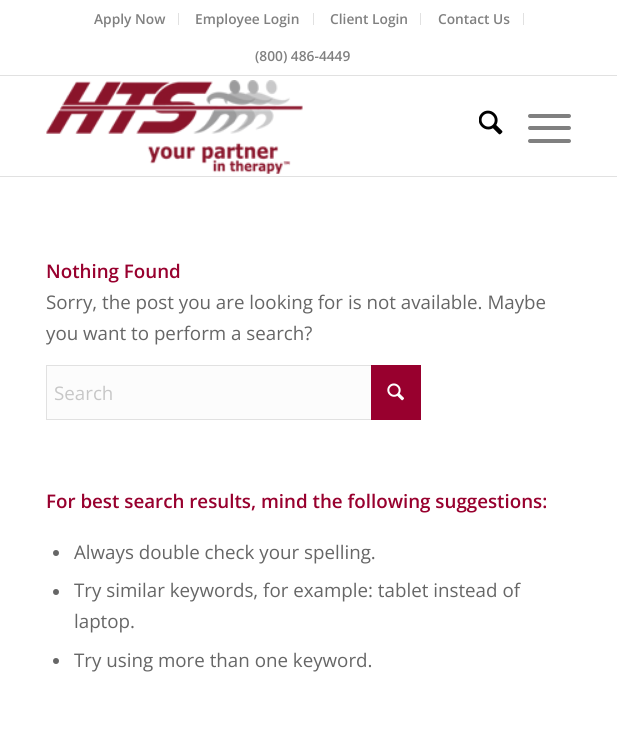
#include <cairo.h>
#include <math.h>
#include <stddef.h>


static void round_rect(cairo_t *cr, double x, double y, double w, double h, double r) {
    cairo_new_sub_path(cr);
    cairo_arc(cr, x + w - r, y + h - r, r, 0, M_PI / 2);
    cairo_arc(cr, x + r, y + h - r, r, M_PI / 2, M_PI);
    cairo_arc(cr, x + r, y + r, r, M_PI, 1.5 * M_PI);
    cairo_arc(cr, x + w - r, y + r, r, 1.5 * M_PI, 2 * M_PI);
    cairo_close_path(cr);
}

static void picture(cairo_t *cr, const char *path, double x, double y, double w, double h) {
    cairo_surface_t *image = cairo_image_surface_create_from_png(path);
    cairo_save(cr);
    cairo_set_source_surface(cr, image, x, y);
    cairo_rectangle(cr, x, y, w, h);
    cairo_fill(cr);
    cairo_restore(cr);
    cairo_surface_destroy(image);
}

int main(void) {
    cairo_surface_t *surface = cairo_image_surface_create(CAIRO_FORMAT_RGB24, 617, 747);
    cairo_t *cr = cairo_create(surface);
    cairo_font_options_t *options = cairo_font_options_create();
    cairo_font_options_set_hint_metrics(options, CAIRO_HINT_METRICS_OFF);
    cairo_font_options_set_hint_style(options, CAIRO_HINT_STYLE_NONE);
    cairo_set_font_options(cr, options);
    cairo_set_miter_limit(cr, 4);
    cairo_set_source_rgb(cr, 1, 1, 1);
    cairo_paint(cr);
    cairo_set_source_rgb(cr, 0.882, 0.882, 0.882);
    cairo_rectangle(cr, 0, 75, 617, 1);
    cairo_fill(cr);
    cairo_rectangle(cr, 178, 13, 1, 12);
    cairo_fill(cr);
    cairo_select_font_face(cr, "Open Sans SemiBold", CAIRO_FONT_SLANT_NORMAL, CAIRO_FONT_WEIGHT_NORMAL);
    cairo_set_font_size(cr, 13.75);
    cairo_set_source_rgb(cr, 0.502, 0.502, 0.502);
    cairo_move_to(cr, 94, 24);
    cairo_show_text(cr, "Apply Now");
    cairo_set_source_rgb(cr, 0.882, 0.882, 0.882);
    cairo_rectangle(cr, 313, 13, 1, 12);
    cairo_fill(cr);
    cairo_set_source_rgb(cr, 0.502, 0.502, 0.502);
    cairo_move_to(cr, 195, 24);
    cairo_show_text(cr, "Employee Login");
    cairo_set_source_rgb(cr, 0.882, 0.882, 0.882);
    cairo_rectangle(cr, 420, 13, 1, 12);
    cairo_fill(cr);
    cairo_set_source_rgb(cr, 0.502, 0.502, 0.502);
    cairo_move_to(cr, 330, 24);
    cairo_show_text(cr, "Client Login");
    cairo_set_source_rgb(cr, 0.882, 0.882, 0.882);
    cairo_rectangle(cr, 523, 13, 1, 12);
    cairo_fill(cr);
    cairo_set_source_rgb(cr, 0.502, 0.502, 0.502);
    cairo_move_to(cr, 438, 24);
    cairo_show_text(cr, "Contact Us");
    cairo_move_to(cr, 255, 61);
    cairo_show_text(cr, "(800) 486-4449");
    cairo_set_source_rgb(cr, 0.882, 0.882, 0.882);
    cairo_rectangle(cr, 0, 176, 617, 1);
    cairo_fill(cr);
    picture(cr, "img1.png", 46, 80, 257, 94);
    picture(cr, "img2.png", 479, 110, 24, 25);
    cairo_set_source_rgb(cr, 0.502, 0.502, 0.502);
    round_rect(cr, 528, 126, 43, 4, 2);
    cairo_fill(cr);
    round_rect(cr, 528, 114, 43, 4, 2);
    cairo_fill(cr);
    round_rect(cr, 528, 139, 43, 4, 2);
    cairo_fill(cr);
    cairo_set_font_size(cr, 18.75);
    cairo_set_source_rgb(cr, 0.596, 0, 0.18);
    cairo_move_to(cr, 46, 278);
    cairo_show_text(cr, "Nothing Found");
    cairo_select_font_face(cr, "Open Sans", CAIRO_FONT_SLANT_NORMAL, CAIRO_FONT_WEIGHT_NORMAL);
    cairo_set_source_rgb(cr, 0.4, 0.4, 0.4);
    cairo_move_to(cr, 46, 309);
    cairo_show_text(cr, "Sorry, the post you are looking for is not available. Maybe");
    cairo_move_to(cr, 46, 340);
    cairo_show_text(cr, "you want to perform a search?");
    cairo_set_source_rgb(cr, 0.988, 0.988, 0.988);
    cairo_rectangle(cr, 47, 366, 324, 53);
    cairo_fill(cr);
    cairo_rectangle(cr, 46.5, 365.5, 374, 54);
    cairo_set_source_rgb(cr, 0.882, 0.882, 0.882);
    cairo_set_line_width(cr, 1);
    cairo_stroke(cr);
    cairo_set_source_rgb(cr, 0.596, 0, 0.18);
    cairo_rectangle(cr, 371, 365, 50, 55);
    cairo_fill(cr);
    cairo_set_source_rgb(cr, 0.78, 0.78, 0.78);
    cairo_move_to(cr, 54, 400);
    cairo_show_text(cr, "Search");
    picture(cr, "img3.png", 387, 383, 17, 18);
    cairo_select_font_face(cr, "Open Sans SemiBold", CAIRO_FONT_SLANT_NORMAL, CAIRO_FONT_WEIGHT_NORMAL);
    cairo_set_source_rgb(cr, 0.596, 0, 0.18);
    cairo_move_to(cr, 46, 508);
    cairo_show_text(cr, "For best search results, mind the following suggestions:");
    cairo_set_source_rgb(cr, 0.4, 0.4, 0.4);
    cairo_new_path(cr);
    cairo_arc(cr, 56, 553, 3, 0, 2 * M_PI);
    cairo_fill(cr);
    cairo_select_font_face(cr, "Open Sans", CAIRO_FONT_SLANT_NORMAL, CAIRO_FONT_WEIGHT_NORMAL);
    cairo_move_to(cr, 74, 559);
    cairo_show_text(cr, "Always double check your spelling.");
    cairo_new_path(cr);
    cairo_arc(cr, 56, 592, 3, 0, 2 * M_PI);
    cairo_fill(cr);
    cairo_move_to(cr, 74, 597);
    cairo_show_text(cr, "Try similar keywords, for example: tablet instead of");
    cairo_move_to(cr, 74, 628);
    cairo_show_text(cr, "laptop.");
    cairo_new_path(cr);
    cairo_arc(cr, 56, 661, 3, 0, 2 * M_PI);
    cairo_fill(cr);
    cairo_move_to(cr, 74, 667);
    cairo_show_text(cr, "Try using more than one keyword.");
    cairo_surface_write_to_png(surface, "page.png");
    cairo_font_options_destroy(options);
    cairo_destroy(cr);
    cairo_surface_destroy(surface);
    return 0;
}
